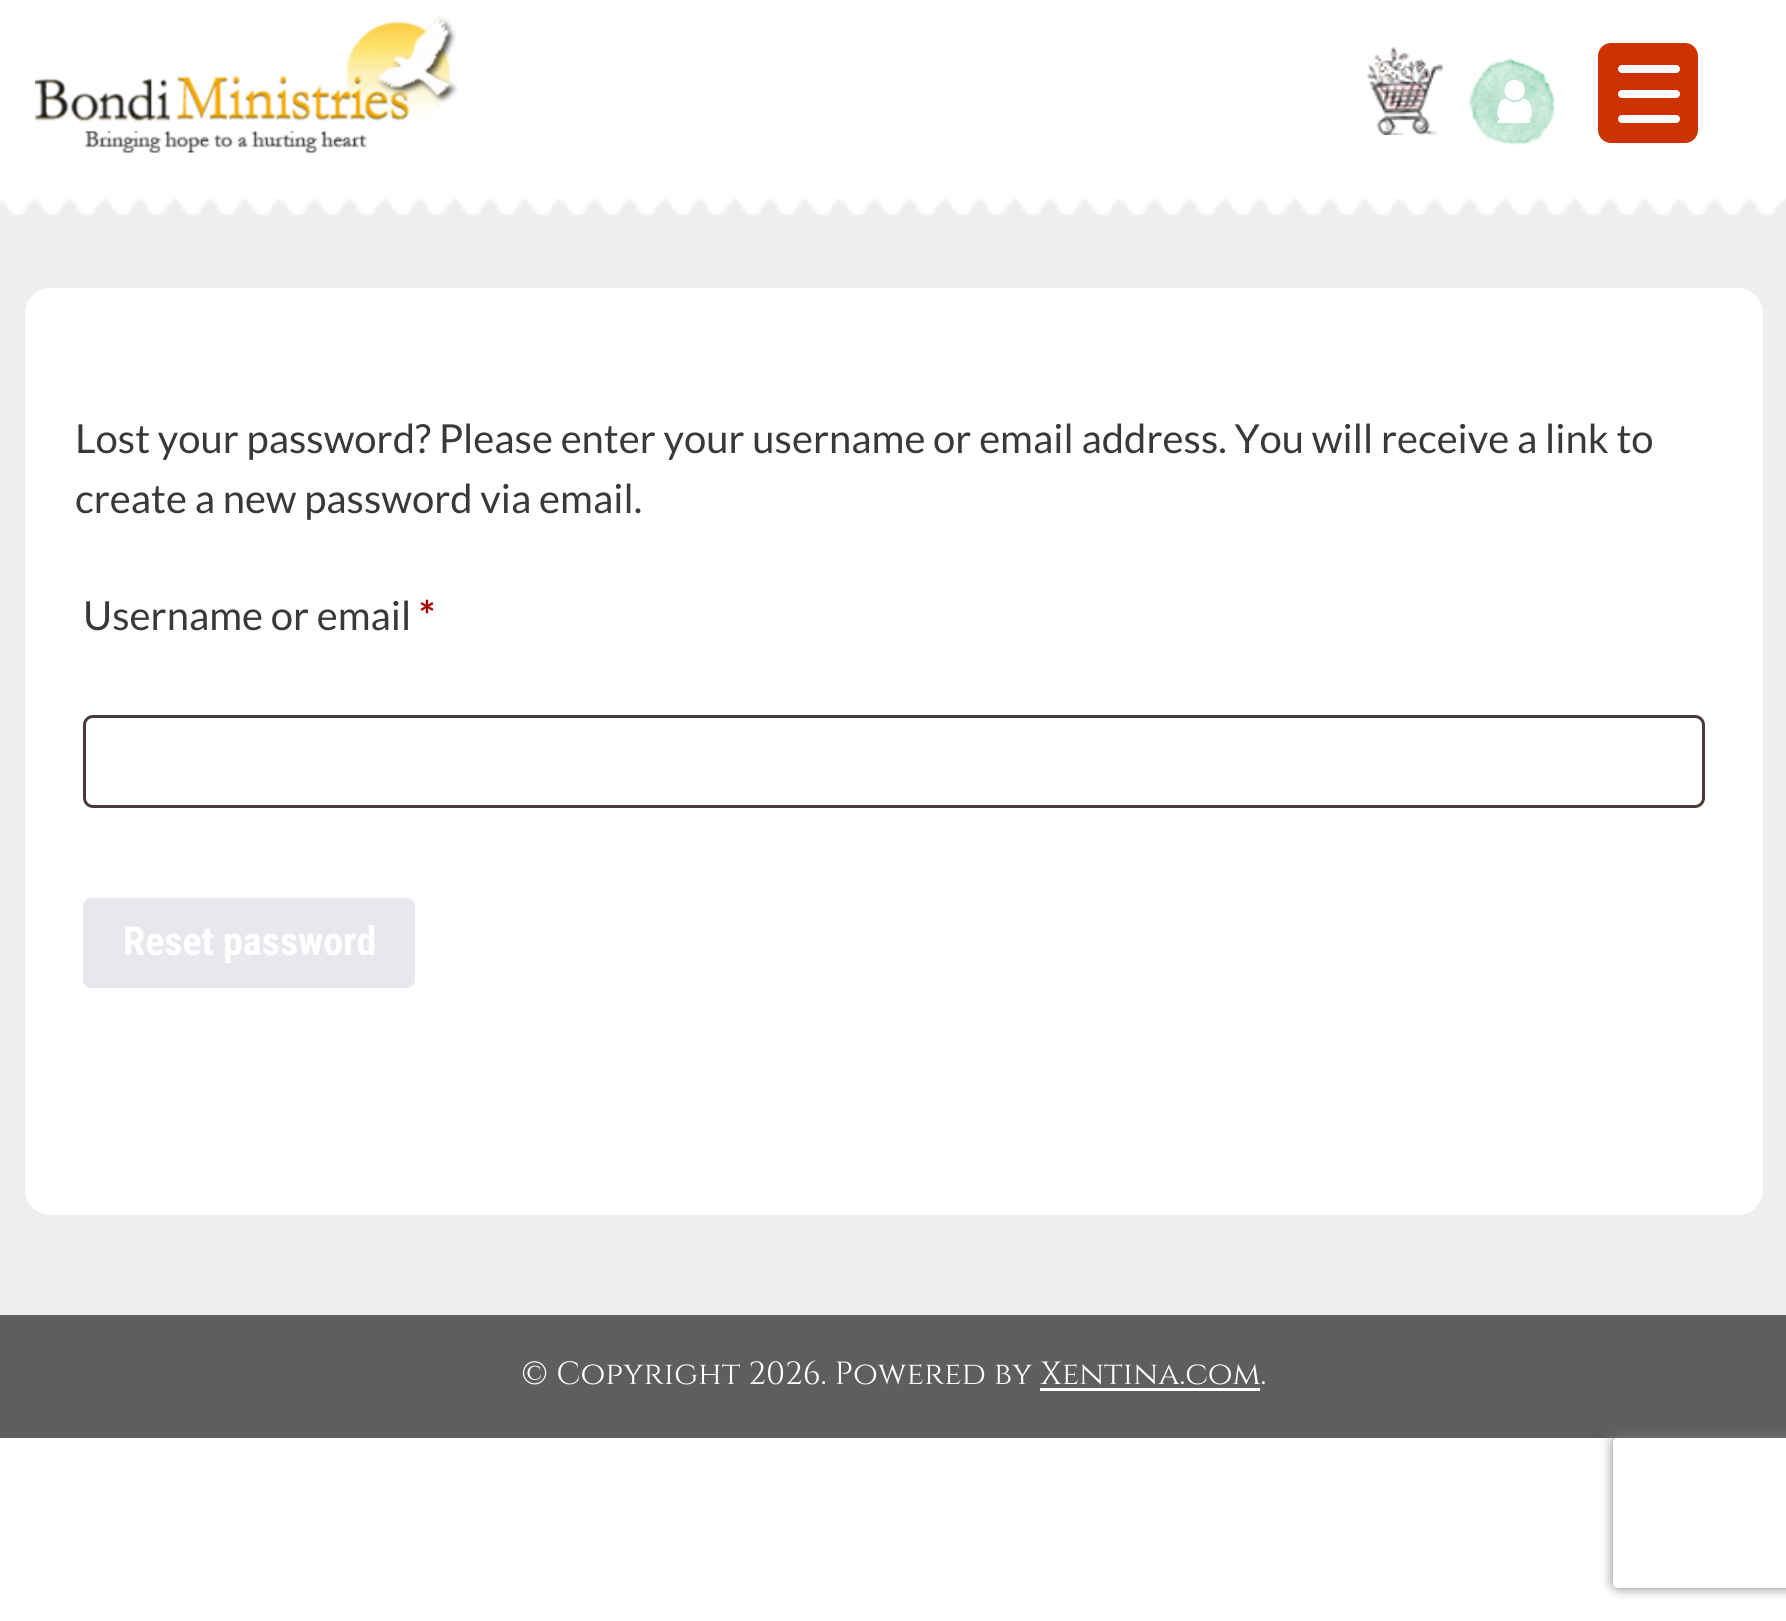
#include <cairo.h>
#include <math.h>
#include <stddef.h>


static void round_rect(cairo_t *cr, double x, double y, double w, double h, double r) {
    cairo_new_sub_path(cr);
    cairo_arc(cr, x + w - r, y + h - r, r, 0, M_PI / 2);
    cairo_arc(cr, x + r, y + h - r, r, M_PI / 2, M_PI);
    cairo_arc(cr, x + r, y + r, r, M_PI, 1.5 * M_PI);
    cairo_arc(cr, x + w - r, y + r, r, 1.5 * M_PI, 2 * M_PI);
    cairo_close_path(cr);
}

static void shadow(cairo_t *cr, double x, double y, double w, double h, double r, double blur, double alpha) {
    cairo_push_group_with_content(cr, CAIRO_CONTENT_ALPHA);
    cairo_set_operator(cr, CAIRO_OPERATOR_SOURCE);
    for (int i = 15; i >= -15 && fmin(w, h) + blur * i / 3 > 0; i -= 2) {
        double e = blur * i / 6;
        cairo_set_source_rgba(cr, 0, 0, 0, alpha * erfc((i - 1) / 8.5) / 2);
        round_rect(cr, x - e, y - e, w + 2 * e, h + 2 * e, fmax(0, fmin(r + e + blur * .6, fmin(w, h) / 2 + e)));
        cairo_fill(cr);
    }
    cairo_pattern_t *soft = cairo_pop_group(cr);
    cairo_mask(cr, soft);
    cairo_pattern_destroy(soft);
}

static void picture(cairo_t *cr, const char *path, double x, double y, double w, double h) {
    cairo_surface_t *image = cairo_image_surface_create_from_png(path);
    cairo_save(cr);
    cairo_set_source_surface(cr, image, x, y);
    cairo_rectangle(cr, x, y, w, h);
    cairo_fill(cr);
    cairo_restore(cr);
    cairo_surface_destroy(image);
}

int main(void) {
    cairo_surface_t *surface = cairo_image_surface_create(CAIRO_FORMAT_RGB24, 1786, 1621);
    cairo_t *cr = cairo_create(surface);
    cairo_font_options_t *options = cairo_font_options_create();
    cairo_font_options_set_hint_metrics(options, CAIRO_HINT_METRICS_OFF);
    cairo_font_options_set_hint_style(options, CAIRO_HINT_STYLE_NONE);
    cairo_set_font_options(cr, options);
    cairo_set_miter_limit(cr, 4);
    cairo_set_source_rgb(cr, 1, 1, 1);
    cairo_paint(cr);
    picture(cr, "img1.png", 35, 15, 423, 138);
    picture(cr, "img2.png", 1367, 47, 76, 88);
    picture(cr, "img3.png", 1469, 57, 86, 88);
    picture(cr, "img4.png", 1497, 79, 35, 41);
    cairo_set_source_rgb(cr, 1, 1, 1);
    cairo_rectangle(cr, 1498, 120, 32, 3);
    cairo_fill(cr);
    cairo_set_source_rgb(cr, 0.8, 0.2, 0);
    round_rect(cr, 1598, 43, 100, 100, 13);
    cairo_fill(cr);
    cairo_set_source_rgb(cr, 1, 1, 1);
    round_rect(cr, 1618, 90, 62, 8, 4);
    cairo_fill(cr);
    round_rect(cr, 1618, 65, 62, 8, 4);
    cairo_fill(cr);
    round_rect(cr, 1618, 115, 62, 8, 4);
    cairo_fill(cr);
    cairo_set_source_rgb(cr, 0.933, 0.933, 0.933);
    cairo_rectangle(cr, 0, 196, 1786, 1119);
    cairo_fill(cr);
    picture(cr, "img5.png", 0, 188, 1786, 27);
    cairo_set_source_rgb(cr, 1, 1, 1);
    round_rect(cr, 25, 288, 1738, 927, 25);
    cairo_fill(cr);
    cairo_select_font_face(cr, "Lato", CAIRO_FONT_SLANT_NORMAL, CAIRO_FONT_WEIGHT_NORMAL);
    cairo_set_font_size(cr, 40);
    cairo_set_source_rgb(cr, 0.224, 0.224, 0.224);
    cairo_move_to(cr, 75, 453);
    cairo_show_text(cr, "Lost your password? Please enter your username or email address. You will receive a link to");
    cairo_move_to(cr, 75, 513);
    cairo_show_text(cr, "create a new password via email.");
    cairo_move_to(cr, 83, 630);
    cairo_show_text(cr, "Username or email");
    cairo_select_font_face(cr, "Lato", CAIRO_FONT_SLANT_NORMAL, CAIRO_FONT_WEIGHT_BOLD);
    cairo_set_source_rgb(cr, 0.667, 0, 0);
    cairo_move_to(cr, 419, 630);
    cairo_show_text(cr, "*");
    round_rect(cr, 84.5, 716.5, 1619, 90, 8.5);
    cairo_set_source_rgb(cr, 0.302, 0.224, 0.224);
    cairo_set_line_width(cr, 3);
    cairo_stroke(cr);
    cairo_set_source_rgb(cr, 0.914, 0.902, 0.929);
    round_rect(cr, 83, 898, 332, 90, 8);
    cairo_fill(cr);
    cairo_select_font_face(cr, "Roboto Condensed", CAIRO_FONT_SLANT_NORMAL, CAIRO_FONT_WEIGHT_BOLD);
    cairo_set_source_rgb(cr, 1, 1, 1);
    cairo_move_to(cr, 123, 955);
    cairo_show_text(cr, "Reset password");
    cairo_set_source_rgb(cr, 0.369, 0.369, 0.369);
    cairo_rectangle(cr, 0, 1315, 1786, 123);
    cairo_fill(cr);
    cairo_select_font_face(cr, "Cinzel", CAIRO_FONT_SLANT_NORMAL, CAIRO_FONT_WEIGHT_NORMAL);
    cairo_set_font_size(cr, 32);
    cairo_set_source_rgb(cr, 1, 1, 1);
    cairo_move_to(cr, 521, 1384);
    cairo_show_text(cr, "© Copyright 2026. Powered by Xentina.com.");
    cairo_rectangle(cr, 1040, 1388, 220, 3);
    cairo_fill(cr);
    cairo_save(cr);
    cairo_set_fill_rule(cr, CAIRO_FILL_RULE_EVEN_ODD);
    cairo_new_path(cr);
    cairo_move_to(cr, 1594, 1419);
    cairo_line_to(cr, 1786, 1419);
    cairo_line_to(cr, 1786, 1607);
    cairo_line_to(cr, 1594, 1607);
    cairo_close_path(cr);
    cairo_move_to(cr, 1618, 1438);
    cairo_line_to(cr, 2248, 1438);
    cairo_curve_to(cr, 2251, 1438, 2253, 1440, 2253, 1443);
    cairo_line_to(cr, 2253, 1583);
    cairo_curve_to(cr, 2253, 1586, 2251, 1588, 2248, 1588);
    cairo_line_to(cr, 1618, 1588);
    cairo_curve_to(cr, 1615, 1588, 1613, 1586, 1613, 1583);
    cairo_line_to(cr, 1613, 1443);
    cairo_curve_to(cr, 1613, 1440, 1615, 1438, 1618, 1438);
    cairo_close_path(cr);
    cairo_clip(cr);
    cairo_set_source_rgb(cr, 0.502, 0.502, 0.502);
    shadow(cr, 1613, 1438, 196, 150, 5, 6, 1);
    cairo_restore(cr);
    cairo_surface_write_to_png(surface, "page.png");
    cairo_font_options_destroy(options);
    cairo_destroy(cr);
    cairo_surface_destroy(surface);
    return 0;
}
